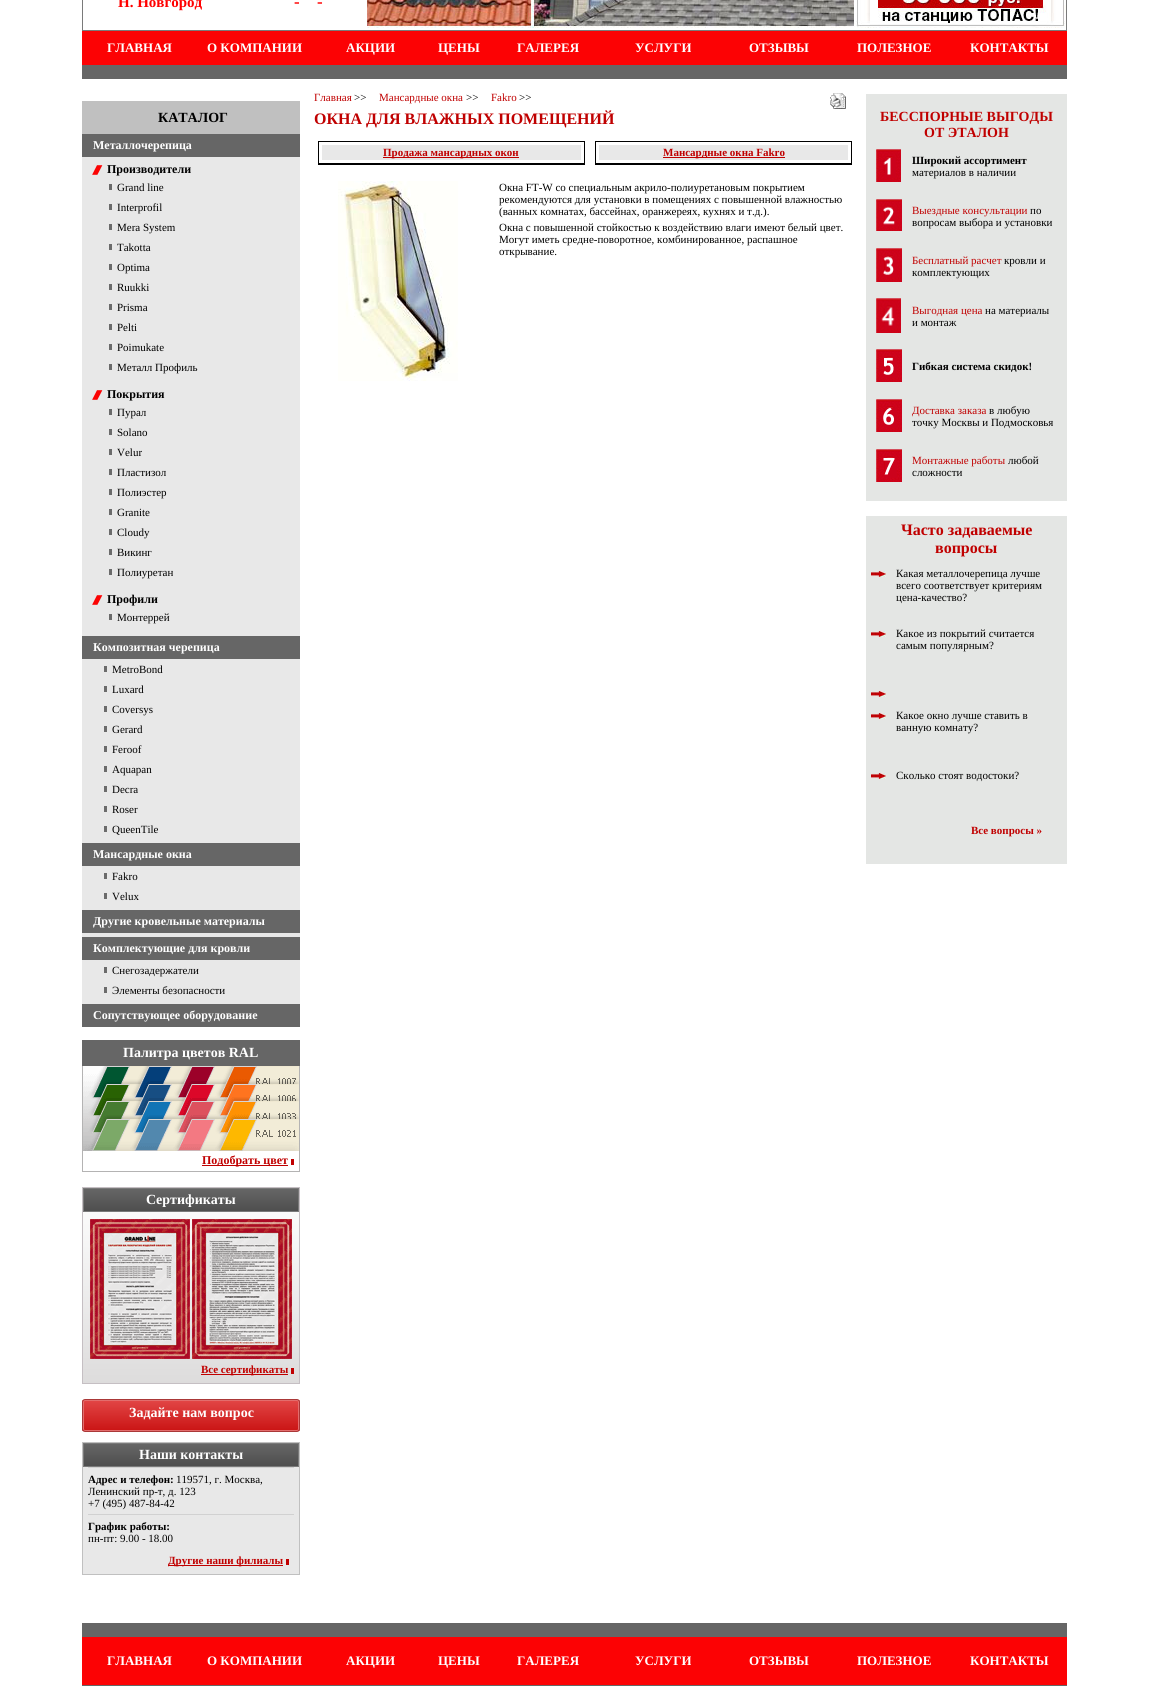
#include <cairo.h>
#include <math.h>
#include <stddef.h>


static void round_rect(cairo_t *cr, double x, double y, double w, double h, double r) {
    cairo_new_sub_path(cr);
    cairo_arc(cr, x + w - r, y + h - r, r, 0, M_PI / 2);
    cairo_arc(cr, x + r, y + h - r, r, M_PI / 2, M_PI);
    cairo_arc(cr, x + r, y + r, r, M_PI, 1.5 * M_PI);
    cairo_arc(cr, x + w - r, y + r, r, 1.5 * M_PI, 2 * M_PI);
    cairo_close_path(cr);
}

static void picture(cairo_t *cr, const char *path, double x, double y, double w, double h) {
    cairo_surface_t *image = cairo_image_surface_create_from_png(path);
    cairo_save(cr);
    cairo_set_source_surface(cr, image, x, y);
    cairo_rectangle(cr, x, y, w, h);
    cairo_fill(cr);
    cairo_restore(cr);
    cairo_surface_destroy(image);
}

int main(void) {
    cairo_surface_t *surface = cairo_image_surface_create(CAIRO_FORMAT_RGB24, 1149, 1686);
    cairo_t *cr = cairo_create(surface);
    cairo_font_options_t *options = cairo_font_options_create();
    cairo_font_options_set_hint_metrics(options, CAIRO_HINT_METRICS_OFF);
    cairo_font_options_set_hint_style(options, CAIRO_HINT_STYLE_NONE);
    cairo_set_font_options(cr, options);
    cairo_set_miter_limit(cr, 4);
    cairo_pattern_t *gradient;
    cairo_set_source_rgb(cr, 1, 1, 1);
    cairo_paint(cr);
    cairo_rectangle(cr, 82.5, -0.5, 984, 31);
    cairo_set_source_rgb(cr, 0.478, 0.478, 0.478);
    cairo_set_line_width(cr, 1);
    cairo_stroke(cr);
    cairo_select_font_face(cr, "Liberation Serif", CAIRO_FONT_SLANT_NORMAL, CAIRO_FONT_WEIGHT_BOLD);
    cairo_set_font_size(cr, 15);
    cairo_set_source_rgb(cr, 1, 0, 0);
    cairo_move_to(cr, 118, 7);
    cairo_show_text(cr, "Н. Новгород");
    cairo_set_font_size(cr, 17);
    cairo_move_to(cr, 294, 7);
    cairo_show_text(cr, "-");
    cairo_move_to(cr, 317, 7);
    cairo_show_text(cr, "-");
    picture(cr, "img1.png", 367, 0, 699, 28);
    picture(cr, "img2.png", 854, 0, 212, 27);
    cairo_set_source_rgb(cr, 0.988, 0.008, 0.016);
    cairo_rectangle(cr, 82, 31, 985, 34);
    cairo_fill(cr);
    cairo_set_source_rgb(cr, 0.4, 0.4, 0.4);
    cairo_rectangle(cr, 82, 65, 985, 14);
    cairo_fill(cr);
    cairo_set_font_size(cr, 13);
    cairo_set_source_rgb(cr, 1, 1, 1);
    cairo_move_to(cr, 107, 52);
    cairo_show_text(cr, "ГЛАВНАЯ");
    cairo_move_to(cr, 207, 52);
    cairo_show_text(cr, "О КОМПАНИИ");
    cairo_move_to(cr, 346, 52);
    cairo_show_text(cr, "АКЦИИ");
    cairo_move_to(cr, 438, 52);
    cairo_show_text(cr, "ЦЕНЫ");
    cairo_move_to(cr, 517, 52);
    cairo_show_text(cr, "ГАЛЕРЕЯ");
    cairo_move_to(cr, 635, 52);
    cairo_show_text(cr, "УСЛУГИ");
    cairo_move_to(cr, 749, 52);
    cairo_show_text(cr, "ОТЗЫВЫ");
    cairo_move_to(cr, 857, 52);
    cairo_show_text(cr, "ПОЛЕЗНОЕ");
    cairo_move_to(cr, 970, 52);
    cairo_show_text(cr, "КОНТАКТЫ");
    cairo_set_source_rgb(cr, 0.91, 0.91, 0.91);
    cairo_rectangle(cr, 82, 157, 218, 847);
    cairo_fill(cr);
    cairo_set_source_rgb(cr, 0.753, 0.753, 0.753);
    cairo_rectangle(cr, 82, 101, 218, 33);
    cairo_fill(cr);
    cairo_set_font_size(cr, 14);
    cairo_set_source_rgb(cr, 0, 0, 0);
    cairo_move_to(cr, 158, 122);
    cairo_show_text(cr, "КАТАЛОГ");
    cairo_set_source_rgb(cr, 0.4, 0.4, 0.4);
    cairo_rectangle(cr, 82, 134, 218, 23);
    cairo_fill(cr);
    cairo_set_font_size(cr, 12);
    cairo_set_source_rgb(cr, 1, 1, 1);
    cairo_move_to(cr, 93, 149);
    cairo_show_text(cr, "Металлочерепица");
    picture(cr, "img3.png", 92, 165, 11, 10);
    cairo_set_source_rgb(cr, 0, 0, 0);
    cairo_move_to(cr, 107, 173);
    cairo_show_text(cr, "Производители");
    cairo_set_source_rgb(cr, 0.42, 0.42, 0.42);
    cairo_rectangle(cr, 109, 184, 3, 6);
    cairo_fill(cr);
    cairo_select_font_face(cr, "Liberation Serif", CAIRO_FONT_SLANT_NORMAL, CAIRO_FONT_WEIGHT_NORMAL);
    cairo_set_font_size(cr, 11);
    cairo_set_source_rgb(cr, 0, 0, 0);
    cairo_move_to(cr, 117, 191);
    cairo_show_text(cr, "Grand line");
    cairo_set_source_rgb(cr, 0.42, 0.42, 0.42);
    cairo_rectangle(cr, 109, 204, 3, 6);
    cairo_fill(cr);
    cairo_set_source_rgb(cr, 0, 0, 0);
    cairo_move_to(cr, 117, 211);
    cairo_show_text(cr, "Interprofil");
    cairo_set_source_rgb(cr, 0.42, 0.42, 0.42);
    cairo_rectangle(cr, 109, 224, 3, 6);
    cairo_fill(cr);
    cairo_set_source_rgb(cr, 0, 0, 0);
    cairo_move_to(cr, 117, 231);
    cairo_show_text(cr, "Mera System");
    cairo_set_source_rgb(cr, 0.42, 0.42, 0.42);
    cairo_rectangle(cr, 109, 244, 3, 6);
    cairo_fill(cr);
    cairo_set_source_rgb(cr, 0, 0, 0);
    cairo_move_to(cr, 117, 251);
    cairo_show_text(cr, "Тakotta");
    cairo_set_source_rgb(cr, 0.42, 0.42, 0.42);
    cairo_rectangle(cr, 109, 264, 3, 6);
    cairo_fill(cr);
    cairo_set_source_rgb(cr, 0, 0, 0);
    cairo_move_to(cr, 117, 271);
    cairo_show_text(cr, "Optima");
    cairo_set_source_rgb(cr, 0.42, 0.42, 0.42);
    cairo_rectangle(cr, 109, 284, 3, 6);
    cairo_fill(cr);
    cairo_set_source_rgb(cr, 0, 0, 0);
    cairo_move_to(cr, 117, 291);
    cairo_show_text(cr, "Ruukki");
    cairo_set_source_rgb(cr, 0.42, 0.42, 0.42);
    cairo_rectangle(cr, 109, 304, 3, 6);
    cairo_fill(cr);
    cairo_set_source_rgb(cr, 0, 0, 0);
    cairo_move_to(cr, 117, 311);
    cairo_show_text(cr, "Prisma");
    cairo_set_source_rgb(cr, 0.42, 0.42, 0.42);
    cairo_rectangle(cr, 109, 324, 3, 6);
    cairo_fill(cr);
    cairo_set_source_rgb(cr, 0, 0, 0);
    cairo_move_to(cr, 117, 331);
    cairo_show_text(cr, "Pelti");
    cairo_set_source_rgb(cr, 0.42, 0.42, 0.42);
    cairo_rectangle(cr, 109, 344, 3, 6);
    cairo_fill(cr);
    cairo_set_source_rgb(cr, 0, 0, 0);
    cairo_move_to(cr, 117, 351);
    cairo_show_text(cr, "Poimukate");
    cairo_set_source_rgb(cr, 0.42, 0.42, 0.42);
    cairo_rectangle(cr, 109, 364, 3, 6);
    cairo_fill(cr);
    cairo_set_source_rgb(cr, 0, 0, 0);
    cairo_move_to(cr, 117, 371);
    cairo_show_text(cr, "Металл Профиль");
    picture(cr, "img3.png", 92, 390, 11, 10);
    cairo_select_font_face(cr, "Liberation Serif", CAIRO_FONT_SLANT_NORMAL, CAIRO_FONT_WEIGHT_BOLD);
    cairo_set_font_size(cr, 12);
    cairo_move_to(cr, 107, 398);
    cairo_show_text(cr, "Покрытия");
    cairo_set_source_rgb(cr, 0.42, 0.42, 0.42);
    cairo_rectangle(cr, 109, 409, 3, 6);
    cairo_fill(cr);
    cairo_select_font_face(cr, "Liberation Serif", CAIRO_FONT_SLANT_NORMAL, CAIRO_FONT_WEIGHT_NORMAL);
    cairo_set_font_size(cr, 11);
    cairo_set_source_rgb(cr, 0, 0, 0);
    cairo_move_to(cr, 117, 416);
    cairo_show_text(cr, "Пурал");
    cairo_set_source_rgb(cr, 0.42, 0.42, 0.42);
    cairo_rectangle(cr, 109, 429, 3, 6);
    cairo_fill(cr);
    cairo_set_source_rgb(cr, 0, 0, 0);
    cairo_move_to(cr, 117, 436);
    cairo_show_text(cr, "Solano");
    cairo_set_source_rgb(cr, 0.42, 0.42, 0.42);
    cairo_rectangle(cr, 109, 449, 3, 6);
    cairo_fill(cr);
    cairo_set_source_rgb(cr, 0, 0, 0);
    cairo_move_to(cr, 117, 456);
    cairo_show_text(cr, "Velur");
    cairo_set_source_rgb(cr, 0.42, 0.42, 0.42);
    cairo_rectangle(cr, 109, 469, 3, 6);
    cairo_fill(cr);
    cairo_set_source_rgb(cr, 0, 0, 0);
    cairo_move_to(cr, 117, 476);
    cairo_show_text(cr, "Пластизол");
    cairo_set_source_rgb(cr, 0.42, 0.42, 0.42);
    cairo_rectangle(cr, 109, 489, 3, 6);
    cairo_fill(cr);
    cairo_set_source_rgb(cr, 0, 0, 0);
    cairo_move_to(cr, 117, 496);
    cairo_show_text(cr, "Полиэстер");
    cairo_set_source_rgb(cr, 0.42, 0.42, 0.42);
    cairo_rectangle(cr, 109, 509, 3, 6);
    cairo_fill(cr);
    cairo_set_source_rgb(cr, 0, 0, 0);
    cairo_move_to(cr, 117, 516);
    cairo_show_text(cr, "Granite");
    cairo_set_source_rgb(cr, 0.42, 0.42, 0.42);
    cairo_rectangle(cr, 109, 529, 3, 6);
    cairo_fill(cr);
    cairo_set_source_rgb(cr, 0, 0, 0);
    cairo_move_to(cr, 117, 536);
    cairo_show_text(cr, "Cloudy");
    cairo_set_source_rgb(cr, 0.42, 0.42, 0.42);
    cairo_rectangle(cr, 109, 549, 3, 6);
    cairo_fill(cr);
    cairo_set_source_rgb(cr, 0, 0, 0);
    cairo_move_to(cr, 117, 556);
    cairo_show_text(cr, "Викинг");
    cairo_set_source_rgb(cr, 0.42, 0.42, 0.42);
    cairo_rectangle(cr, 109, 569, 3, 6);
    cairo_fill(cr);
    cairo_set_source_rgb(cr, 0, 0, 0);
    cairo_move_to(cr, 117, 576);
    cairo_show_text(cr, "Полиуретан");
    picture(cr, "img3.png", 92, 595, 11, 10);
    cairo_select_font_face(cr, "Liberation Serif", CAIRO_FONT_SLANT_NORMAL, CAIRO_FONT_WEIGHT_BOLD);
    cairo_set_font_size(cr, 12);
    cairo_move_to(cr, 107, 603);
    cairo_show_text(cr, "Профили");
    cairo_set_source_rgb(cr, 0.42, 0.42, 0.42);
    cairo_rectangle(cr, 109, 614, 3, 6);
    cairo_fill(cr);
    cairo_select_font_face(cr, "Liberation Serif", CAIRO_FONT_SLANT_NORMAL, CAIRO_FONT_WEIGHT_NORMAL);
    cairo_set_font_size(cr, 11);
    cairo_set_source_rgb(cr, 0, 0, 0);
    cairo_move_to(cr, 117, 621);
    cairo_show_text(cr, "Монтеррей");
    cairo_set_source_rgb(cr, 0.4, 0.4, 0.4);
    cairo_rectangle(cr, 82, 636, 218, 23);
    cairo_fill(cr);
    cairo_select_font_face(cr, "Liberation Serif", CAIRO_FONT_SLANT_NORMAL, CAIRO_FONT_WEIGHT_BOLD);
    cairo_set_font_size(cr, 12);
    cairo_set_source_rgb(cr, 1, 1, 1);
    cairo_move_to(cr, 93, 651);
    cairo_show_text(cr, "Композитная черепица");
    cairo_set_source_rgb(cr, 0.42, 0.42, 0.42);
    cairo_rectangle(cr, 104, 666, 3, 6);
    cairo_fill(cr);
    cairo_select_font_face(cr, "Liberation Serif", CAIRO_FONT_SLANT_NORMAL, CAIRO_FONT_WEIGHT_NORMAL);
    cairo_set_font_size(cr, 11);
    cairo_set_source_rgb(cr, 0, 0, 0);
    cairo_move_to(cr, 112, 673);
    cairo_show_text(cr, "MetroBond");
    cairo_set_source_rgb(cr, 0.42, 0.42, 0.42);
    cairo_rectangle(cr, 104, 686, 3, 6);
    cairo_fill(cr);
    cairo_set_source_rgb(cr, 0, 0, 0);
    cairo_move_to(cr, 112, 693);
    cairo_show_text(cr, "Luxard");
    cairo_set_source_rgb(cr, 0.42, 0.42, 0.42);
    cairo_rectangle(cr, 104, 706, 3, 6);
    cairo_fill(cr);
    cairo_set_source_rgb(cr, 0, 0, 0);
    cairo_move_to(cr, 112, 713);
    cairo_show_text(cr, "Coversys");
    cairo_set_source_rgb(cr, 0.42, 0.42, 0.42);
    cairo_rectangle(cr, 104, 726, 3, 6);
    cairo_fill(cr);
    cairo_set_source_rgb(cr, 0, 0, 0);
    cairo_move_to(cr, 112, 733);
    cairo_show_text(cr, "Gerard");
    cairo_set_source_rgb(cr, 0.42, 0.42, 0.42);
    cairo_rectangle(cr, 104, 746, 3, 6);
    cairo_fill(cr);
    cairo_set_source_rgb(cr, 0, 0, 0);
    cairo_move_to(cr, 112, 753);
    cairo_show_text(cr, "Feroof");
    cairo_set_source_rgb(cr, 0.42, 0.42, 0.42);
    cairo_rectangle(cr, 104, 766, 3, 6);
    cairo_fill(cr);
    cairo_set_source_rgb(cr, 0, 0, 0);
    cairo_move_to(cr, 112, 773);
    cairo_show_text(cr, "Aquapan");
    cairo_set_source_rgb(cr, 0.42, 0.42, 0.42);
    cairo_rectangle(cr, 104, 786, 3, 6);
    cairo_fill(cr);
    cairo_set_source_rgb(cr, 0, 0, 0);
    cairo_move_to(cr, 112, 793);
    cairo_show_text(cr, "Decra");
    cairo_set_source_rgb(cr, 0.42, 0.42, 0.42);
    cairo_rectangle(cr, 104, 806, 3, 6);
    cairo_fill(cr);
    cairo_set_source_rgb(cr, 0, 0, 0);
    cairo_move_to(cr, 112, 813);
    cairo_show_text(cr, "Roser");
    cairo_set_source_rgb(cr, 0.42, 0.42, 0.42);
    cairo_rectangle(cr, 104, 826, 3, 6);
    cairo_fill(cr);
    cairo_set_source_rgb(cr, 0, 0, 0);
    cairo_move_to(cr, 112, 833);
    cairo_show_text(cr, "QueenTile");
    cairo_set_source_rgb(cr, 0.4, 0.4, 0.4);
    cairo_rectangle(cr, 82, 843, 218, 23);
    cairo_fill(cr);
    cairo_select_font_face(cr, "Liberation Serif", CAIRO_FONT_SLANT_NORMAL, CAIRO_FONT_WEIGHT_BOLD);
    cairo_set_font_size(cr, 12);
    cairo_set_source_rgb(cr, 1, 1, 1);
    cairo_move_to(cr, 93, 858);
    cairo_show_text(cr, "Мансардные окна");
    cairo_set_source_rgb(cr, 0.42, 0.42, 0.42);
    cairo_rectangle(cr, 104, 873, 3, 6);
    cairo_fill(cr);
    cairo_select_font_face(cr, "Liberation Serif", CAIRO_FONT_SLANT_NORMAL, CAIRO_FONT_WEIGHT_NORMAL);
    cairo_set_font_size(cr, 11);
    cairo_set_source_rgb(cr, 0, 0, 0);
    cairo_move_to(cr, 112, 880);
    cairo_show_text(cr, "Fakro");
    cairo_set_source_rgb(cr, 0.42, 0.42, 0.42);
    cairo_rectangle(cr, 104, 893, 3, 6);
    cairo_fill(cr);
    cairo_set_source_rgb(cr, 0, 0, 0);
    cairo_move_to(cr, 112, 900);
    cairo_show_text(cr, "Velux");
    cairo_set_source_rgb(cr, 0.4, 0.4, 0.4);
    cairo_rectangle(cr, 82, 910, 218, 23);
    cairo_fill(cr);
    cairo_select_font_face(cr, "Liberation Serif", CAIRO_FONT_SLANT_NORMAL, CAIRO_FONT_WEIGHT_BOLD);
    cairo_set_font_size(cr, 12);
    cairo_set_source_rgb(cr, 1, 1, 1);
    cairo_move_to(cr, 93, 925);
    cairo_show_text(cr, "Другие кровельные материалы");
    cairo_set_source_rgb(cr, 0.4, 0.4, 0.4);
    cairo_rectangle(cr, 82, 937, 218, 23);
    cairo_fill(cr);
    cairo_set_source_rgb(cr, 1, 1, 1);
    cairo_move_to(cr, 93, 952);
    cairo_show_text(cr, "Комплектующие для кровли");
    cairo_set_source_rgb(cr, 0.42, 0.42, 0.42);
    cairo_rectangle(cr, 104, 967, 3, 6);
    cairo_fill(cr);
    cairo_select_font_face(cr, "Liberation Serif", CAIRO_FONT_SLANT_NORMAL, CAIRO_FONT_WEIGHT_NORMAL);
    cairo_set_font_size(cr, 11);
    cairo_set_source_rgb(cr, 0, 0, 0);
    cairo_move_to(cr, 112, 974);
    cairo_show_text(cr, "Снегозадержатели");
    cairo_set_source_rgb(cr, 0.42, 0.42, 0.42);
    cairo_rectangle(cr, 104, 987, 3, 6);
    cairo_fill(cr);
    cairo_set_source_rgb(cr, 0, 0, 0);
    cairo_move_to(cr, 112, 994);
    cairo_show_text(cr, "Элементы безопасности");
    cairo_set_source_rgb(cr, 0.4, 0.4, 0.4);
    cairo_rectangle(cr, 82, 1004, 218, 23);
    cairo_fill(cr);
    cairo_select_font_face(cr, "Liberation Serif", CAIRO_FONT_SLANT_NORMAL, CAIRO_FONT_WEIGHT_BOLD);
    cairo_set_font_size(cr, 12);
    cairo_set_source_rgb(cr, 1, 1, 1);
    cairo_move_to(cr, 93, 1019);
    cairo_show_text(cr, "Сопутствующее оборудование");
    cairo_set_source_rgb(cr, 0.4, 0.4, 0.4);
    cairo_rectangle(cr, 82, 1040, 218, 26);
    cairo_fill(cr);
    cairo_set_font_size(cr, 14);
    cairo_set_source_rgb(cr, 1, 1, 1);
    cairo_move_to(cr, 123, 1057);
    cairo_show_text(cr, "Палитра цветов RAL");
    cairo_set_source_rgb(cr, 0.706, 0.702, 0.702);
    cairo_rectangle(cr, 299, 1066, 1, 106);
    cairo_fill(cr);
    cairo_rectangle(cr, 82, 1171, 218, 1);
    cairo_fill(cr);
    cairo_rectangle(cr, 82, 1066, 1, 106);
    cairo_fill(cr);
    picture(cr, "img4.png", 83, 1066, 216, 85);
    cairo_set_source_rgb(cr, 0.753, 0, 0);
    cairo_rectangle(cr, 291, 1159, 3, 6);
    cairo_fill(cr);
    cairo_rectangle(cr, 202, 1165, 86, 1);
    cairo_fill(cr);
    cairo_set_font_size(cr, 12);
    cairo_move_to(cr, 202, 1164);
    cairo_show_text(cr, "Подобрать цвет");
    gradient = cairo_pattern_create_linear(83, 1188, 83, 1383);
    cairo_pattern_add_color_stop_rgba(gradient, 0, 1, 1, 1, 1);
    cairo_pattern_add_color_stop_rgba(gradient, 1, 0.867, 0.863, 0.863, 1);
    cairo_set_source(cr, gradient);
    cairo_pattern_destroy(gradient);
    cairo_rectangle(cr, 83, 1212, 216, 171);
    cairo_fill(cr);
    cairo_rectangle(cr, 82.5, 1187.5, 217, 196);
    cairo_set_source_rgb(cr, 0.773, 0.749, 0.765);
    cairo_stroke(cr);
    gradient = cairo_pattern_create_linear(84, 1189, 84, 1211);
    cairo_pattern_add_color_stop_rgba(gradient, 0, 0.4, 0.4, 0.4, 1);
    cairo_pattern_add_color_stop_rgba(gradient, 1, 0.306, 0.306, 0.306, 1);
    cairo_set_source(cr, gradient);
    cairo_pattern_destroy(gradient);
    cairo_rectangle(cr, 84, 1189, 214, 22);
    cairo_fill(cr);
    cairo_rectangle(cr, 83.5, 1188.5, 215, 23);
    cairo_set_source_rgb(cr, 0.478, 0.478, 0.478);
    cairo_stroke(cr);
    cairo_set_font_size(cr, 14);
    cairo_set_source_rgb(cr, 1, 1, 1);
    cairo_move_to(cr, 146, 1204);
    cairo_show_text(cr, "Сертификаты");
    picture(cr, "img5.png", 90, 1219, 100, 140);
    picture(cr, "img6.png", 192, 1219, 100, 140);
    cairo_set_source_rgb(cr, 0.753, 0, 0);
    cairo_rectangle(cr, 291, 1368, 3, 6);
    cairo_fill(cr);
    cairo_rectangle(cr, 201, 1374, 87, 1);
    cairo_fill(cr);
    cairo_set_font_size(cr, 11);
    cairo_move_to(cr, 201, 1373);
    cairo_show_text(cr, "Все сертификаты");
    cairo_save(cr);
    round_rect(cr, 82, 1399, 218, 33, 3);
    cairo_clip(cr);
    gradient = cairo_pattern_create_linear(83, 1400, 83, 1431);
    cairo_pattern_add_color_stop_rgba(gradient, 0, 0.886, 0.275, 0.275, 1);
    cairo_pattern_add_color_stop_rgba(gradient, 1, 0.792, 0.078, 0.078, 1);
    cairo_set_source(cr, gradient);
    cairo_pattern_destroy(gradient);
    cairo_rectangle(cr, 82, 1400, 218, 31);
    cairo_fill(cr);
    cairo_restore(cr);
    round_rect(cr, 83.5, 1400.5, 215, 30, 1.5);
    cairo_set_source_rgb(cr, 0.89, 0.427, 0.427);
    cairo_stroke(cr);
    round_rect(cr, 82.5, 1399.5, 217, 32, 2.5);
    cairo_set_source_rgb(cr, 0.667, 0.22, 0.22);
    cairo_stroke(cr);
    cairo_set_font_size(cr, 14);
    cairo_set_source_rgb(cr, 1, 1, 1);
    cairo_move_to(cr, 129, 1417);
    cairo_show_text(cr, "Задайте нам вопрос");
    cairo_set_source_rgb(cr, 0.91, 0.91, 0.91);
    cairo_rectangle(cr, 83, 1467, 216, 107);
    cairo_fill(cr);
    cairo_rectangle(cr, 82.5, 1442.5, 217, 132);
    cairo_set_source_rgb(cr, 0.753, 0.753, 0.753);
    cairo_stroke(cr);
    gradient = cairo_pattern_create_linear(84, 1444, 84, 1466);
    cairo_pattern_add_color_stop_rgba(gradient, 0, 0.4, 0.4, 0.4, 1);
    cairo_pattern_add_color_stop_rgba(gradient, 1, 0.306, 0.306, 0.306, 1);
    cairo_set_source(cr, gradient);
    cairo_pattern_destroy(gradient);
    cairo_rectangle(cr, 84, 1444, 214, 22);
    cairo_fill(cr);
    cairo_rectangle(cr, 83.5, 1443.5, 215, 23);
    cairo_set_source_rgb(cr, 0.478, 0.478, 0.478);
    cairo_stroke(cr);
    cairo_set_source_rgb(cr, 1, 1, 1);
    cairo_move_to(cr, 139, 1459);
    cairo_show_text(cr, "Наши контакты");
    cairo_set_source_rgb(cr, 0.82, 0.82, 0.82);
    cairo_rectangle(cr, 88, 1467, 206, 1);
    cairo_fill(cr);
    cairo_set_font_size(cr, 11);
    cairo_set_source_rgb(cr, 0, 0, 0);
    cairo_move_to(cr, 88, 1483);
    cairo_show_text(cr, "Адрес и телефон:");
    cairo_select_font_face(cr, "Liberation Serif", CAIRO_FONT_SLANT_NORMAL, CAIRO_FONT_WEIGHT_NORMAL);
    cairo_move_to(cr, 176, 1483);
    cairo_show_text(cr, "119571, г. Москва,");
    cairo_move_to(cr, 88, 1495);
    cairo_show_text(cr, "Ленинский пр-т, д. 123");
    cairo_move_to(cr, 88, 1507);
    cairo_show_text(cr, "+7 (495) 487-84-42");
    cairo_set_source_rgb(cr, 0.82, 0.82, 0.82);
    cairo_rectangle(cr, 88, 1514, 206, 1);
    cairo_fill(cr);
    cairo_select_font_face(cr, "Liberation Serif", CAIRO_FONT_SLANT_NORMAL, CAIRO_FONT_WEIGHT_BOLD);
    cairo_set_source_rgb(cr, 0, 0, 0);
    cairo_move_to(cr, 88, 1530);
    cairo_show_text(cr, "График работы:");
    cairo_select_font_face(cr, "Liberation Serif", CAIRO_FONT_SLANT_NORMAL, CAIRO_FONT_WEIGHT_NORMAL);
    cairo_move_to(cr, 88, 1542);
    cairo_show_text(cr, "пн-пт: 9.00 - 18.00");
    cairo_set_source_rgb(cr, 0.753, 0, 0);
    cairo_rectangle(cr, 286, 1559, 3, 6);
    cairo_fill(cr);
    cairo_rectangle(cr, 168, 1565, 115, 1);
    cairo_fill(cr);
    cairo_select_font_face(cr, "Liberation Serif", CAIRO_FONT_SLANT_NORMAL, CAIRO_FONT_WEIGHT_BOLD);
    cairo_move_to(cr, 168, 1564);
    cairo_show_text(cr, "Другие наши филиалы");
    cairo_select_font_face(cr, "Liberation Serif", CAIRO_FONT_SLANT_NORMAL, CAIRO_FONT_WEIGHT_NORMAL);
    cairo_move_to(cr, 314, 101);
    cairo_show_text(cr, "Главная");
    cairo_set_source_rgb(cr, 0, 0, 0);
    cairo_move_to(cr, 354, 101);
    cairo_show_text(cr, ">>");
    cairo_set_source_rgb(cr, 0.753, 0, 0);
    cairo_move_to(cr, 379, 101);
    cairo_show_text(cr, "Мансардные окна");
    cairo_set_source_rgb(cr, 0, 0, 0);
    cairo_move_to(cr, 466, 101);
    cairo_show_text(cr, ">>");
    cairo_set_source_rgb(cr, 0.753, 0, 0);
    cairo_move_to(cr, 491, 101);
    cairo_show_text(cr, "Fakro");
    cairo_set_source_rgb(cr, 0, 0, 0);
    cairo_move_to(cr, 519, 101);
    cairo_show_text(cr, ">>");
    picture(cr, "img7.png", 830, 93, 16, 16);
    cairo_select_font_face(cr, "Liberation Serif", CAIRO_FONT_SLANT_NORMAL, CAIRO_FONT_WEIGHT_BOLD);
    cairo_set_font_size(cr, 16);
    cairo_set_source_rgb(cr, 0.753, 0, 0);
    cairo_move_to(cr, 314, 124);
    cairo_show_text(cr, "ОКНА ДЛЯ ВЛАЖНЫХ ПОМЕЩЕНИЙ");
    cairo_rectangle(cr, 318.5, 141.5, 266, 23);
    cairo_set_source_rgb(cr, 0, 0, 0);
    cairo_stroke(cr);
    cairo_rectangle(cr, 319, 163, 265, 1);
    cairo_fill(cr);
    cairo_set_source_rgb(cr, 0.91, 0.91, 0.91);
    cairo_rectangle(cr, 322, 145, 259, 15);
    cairo_fill(cr);
    cairo_set_source_rgb(cr, 0.753, 0, 0);
    cairo_rectangle(cr, 383, 157, 136, 1);
    cairo_fill(cr);
    cairo_set_font_size(cr, 11);
    cairo_move_to(cr, 383, 156);
    cairo_show_text(cr, "Продажа мансардных окон");
    cairo_rectangle(cr, 595.5, 141.5, 256, 23);
    cairo_set_source_rgb(cr, 0, 0, 0);
    cairo_stroke(cr);
    cairo_rectangle(cr, 596, 163, 255, 1);
    cairo_fill(cr);
    cairo_set_source_rgb(cr, 0.91, 0.91, 0.91);
    cairo_rectangle(cr, 599, 145, 249, 15);
    cairo_fill(cr);
    cairo_set_source_rgb(cr, 0.753, 0, 0);
    cairo_rectangle(cr, 663, 157, 122, 1);
    cairo_fill(cr);
    cairo_move_to(cr, 663, 156);
    cairo_show_text(cr, "Мансардные окна Fakro");
    picture(cr, "img8.png", 338, 181, 120, 200);
    cairo_select_font_face(cr, "Liberation Serif", CAIRO_FONT_SLANT_NORMAL, CAIRO_FONT_WEIGHT_NORMAL);
    cairo_set_source_rgb(cr, 0, 0, 0);
    cairo_move_to(cr, 499, 191);
    cairo_show_text(cr, "Окна FT-W со специальным акрило-полиуретановым покрытием");
    cairo_move_to(cr, 499, 203);
    cairo_show_text(cr, "рекомендуются для установки в помещениях с повышенной влажностью");
    cairo_move_to(cr, 499, 215);
    cairo_show_text(cr, "(ванных комнатах, бассейнах, оранжереях, кухнях и т.д.).");
    cairo_move_to(cr, 499, 231);
    cairo_show_text(cr, "Окна с повышенной стойкостью к воздействию влаги имеют белый цвет.");
    cairo_move_to(cr, 499, 243);
    cairo_show_text(cr, "Могут иметь средне-поворотное, комбинированное, распашное");
    cairo_move_to(cr, 499, 255);
    cairo_show_text(cr, "открывание.");
    cairo_set_source_rgb(cr, 0.894, 0.902, 0.894);
    cairo_rectangle(cr, 866, 94, 201, 407);
    cairo_fill(cr);
    cairo_select_font_face(cr, "Liberation Serif", CAIRO_FONT_SLANT_NORMAL, CAIRO_FONT_WEIGHT_BOLD);
    cairo_set_font_size(cr, 14);
    cairo_set_source_rgb(cr, 0.753, 0, 0);
    cairo_move_to(cr, 880, 121);
    cairo_show_text(cr, "БЕССПОРНЫЕ ВЫГОДЫ");
    cairo_move_to(cr, 924, 137);
    cairo_show_text(cr, "ОТ ЭТАЛОН");
    picture(cr, "img9.png", 876, 149, 25, 33);
    cairo_set_font_size(cr, 11);
    cairo_set_source_rgb(cr, 0, 0, 0);
    cairo_move_to(cr, 912, 164);
    cairo_show_text(cr, "Широкий ассортимент");
    cairo_select_font_face(cr, "Liberation Serif", CAIRO_FONT_SLANT_NORMAL, CAIRO_FONT_WEIGHT_NORMAL);
    cairo_move_to(cr, 912, 176);
    cairo_show_text(cr, "материалов в наличии");
    picture(cr, "img10.png", 876, 199, 26, 32);
    cairo_set_source_rgb(cr, 0.753, 0, 0);
    cairo_move_to(cr, 912, 214);
    cairo_show_text(cr, "Выездные консультации");
    cairo_set_source_rgb(cr, 0, 0, 0);
    cairo_move_to(cr, 1030, 214);
    cairo_show_text(cr, "по");
    cairo_move_to(cr, 912, 226);
    cairo_show_text(cr, "вопросам выбора и установки");
    picture(cr, "img11.png", 876, 248, 26, 34);
    cairo_set_source_rgb(cr, 0.753, 0, 0);
    cairo_move_to(cr, 912, 264);
    cairo_show_text(cr, "Бесплатный расчет");
    cairo_set_source_rgb(cr, 0, 0, 0);
    cairo_move_to(cr, 1004, 264);
    cairo_show_text(cr, "кровли и");
    cairo_move_to(cr, 912, 276);
    cairo_show_text(cr, "комплектующих");
    picture(cr, "img12.png", 876, 298, 25, 35);
    cairo_set_source_rgb(cr, 0.753, 0, 0);
    cairo_move_to(cr, 912, 314);
    cairo_show_text(cr, "Выгодная цена");
    cairo_set_source_rgb(cr, 0, 0, 0);
    cairo_move_to(cr, 985, 314);
    cairo_show_text(cr, "на материалы");
    cairo_move_to(cr, 912, 326);
    cairo_show_text(cr, "и монтаж");
    picture(cr, "img13.png", 876, 349, 26, 33);
    cairo_select_font_face(cr, "Liberation Serif", CAIRO_FONT_SLANT_NORMAL, CAIRO_FONT_WEIGHT_BOLD);
    cairo_move_to(cr, 912, 370);
    cairo_show_text(cr, "Гибкая система скидок!");
    picture(cr, "img14.png", 876, 399, 26, 33);
    cairo_select_font_face(cr, "Liberation Serif", CAIRO_FONT_SLANT_NORMAL, CAIRO_FONT_WEIGHT_NORMAL);
    cairo_set_source_rgb(cr, 0.753, 0, 0);
    cairo_move_to(cr, 912, 414);
    cairo_show_text(cr, "Доставка заказа");
    cairo_set_source_rgb(cr, 0, 0, 0);
    cairo_move_to(cr, 989, 414);
    cairo_show_text(cr, "в любую");
    cairo_move_to(cr, 912, 426);
    cairo_show_text(cr, "точку Москвы и Подмосковья");
    picture(cr, "img15.png", 876, 449, 26, 33);
    cairo_set_source_rgb(cr, 0.753, 0, 0);
    cairo_move_to(cr, 912, 464);
    cairo_show_text(cr, "Монтажные работы");
    cairo_set_source_rgb(cr, 0, 0, 0);
    cairo_move_to(cr, 1008, 464);
    cairo_show_text(cr, "любой");
    cairo_move_to(cr, 912, 476);
    cairo_show_text(cr, "сложности");
    cairo_set_source_rgb(cr, 0.894, 0.902, 0.894);
    cairo_rectangle(cr, 866, 516, 201, 348);
    cairo_fill(cr);
    cairo_select_font_face(cr, "Liberation Serif", CAIRO_FONT_SLANT_NORMAL, CAIRO_FONT_WEIGHT_BOLD);
    cairo_set_font_size(cr, 16);
    cairo_set_source_rgb(cr, 0.753, 0, 0);
    cairo_move_to(cr, 901, 535);
    cairo_show_text(cr, "Часто задаваемые");
    cairo_move_to(cr, 935, 553);
    cairo_show_text(cr, "вопросы");
    picture(cr, "img16.png", 871, 571, 15, 6);
    cairo_select_font_face(cr, "Liberation Serif", CAIRO_FONT_SLANT_NORMAL, CAIRO_FONT_WEIGHT_NORMAL);
    cairo_set_font_size(cr, 11);
    cairo_set_source_rgb(cr, 0, 0, 0);
    cairo_move_to(cr, 896, 577);
    cairo_show_text(cr, "Какая металлочерепица лучше");
    cairo_move_to(cr, 896, 589);
    cairo_show_text(cr, "всего соответствует критериям");
    cairo_move_to(cr, 896, 601);
    cairo_show_text(cr, "цена-качество?");
    picture(cr, "img16.png", 871, 631, 15, 6);
    cairo_move_to(cr, 896, 637);
    cairo_show_text(cr, "Какое из покрытий считается");
    cairo_move_to(cr, 896, 649);
    cairo_show_text(cr, "самым популярным?");
    picture(cr, "img16.png", 871, 691, 15, 6);
    picture(cr, "img16.png", 871, 713, 15, 6);
    cairo_move_to(cr, 896, 719);
    cairo_show_text(cr, "Какое окно лучше ставить в");
    cairo_move_to(cr, 896, 731);
    cairo_show_text(cr, "ванную комнату?");
    picture(cr, "img16.png", 871, 773, 15, 6);
    cairo_move_to(cr, 896, 779);
    cairo_show_text(cr, "Сколько стоят водостоки?");
    cairo_select_font_face(cr, "Liberation Serif", CAIRO_FONT_SLANT_NORMAL, CAIRO_FONT_WEIGHT_BOLD);
    cairo_set_source_rgb(cr, 0.753, 0, 0);
    cairo_move_to(cr, 971, 834);
    cairo_show_text(cr, "Все вопросы »");
    cairo_set_source_rgb(cr, 0.4, 0.4, 0.4);
    cairo_rectangle(cr, 82, 1623, 985, 14);
    cairo_fill(cr);
    cairo_set_source_rgb(cr, 0.988, 0.008, 0.016);
    cairo_rectangle(cr, 82, 1637, 985, 48);
    cairo_fill(cr);
    cairo_set_font_size(cr, 13);
    cairo_set_source_rgb(cr, 1, 1, 1);
    cairo_move_to(cr, 107, 1665);
    cairo_show_text(cr, "ГЛАВНАЯ");
    cairo_move_to(cr, 207, 1665);
    cairo_show_text(cr, "О КОМПАНИИ");
    cairo_move_to(cr, 346, 1665);
    cairo_show_text(cr, "АКЦИИ");
    cairo_move_to(cr, 438, 1665);
    cairo_show_text(cr, "ЦЕНЫ");
    cairo_move_to(cr, 517, 1665);
    cairo_show_text(cr, "ГАЛЕРЕЯ");
    cairo_move_to(cr, 635, 1665);
    cairo_show_text(cr, "УСЛУГИ");
    cairo_move_to(cr, 749, 1665);
    cairo_show_text(cr, "ОТЗЫВЫ");
    cairo_move_to(cr, 857, 1665);
    cairo_show_text(cr, "ПОЛЕЗНОЕ");
    cairo_move_to(cr, 970, 1665);
    cairo_show_text(cr, "КОНТАКТЫ");
    cairo_set_source_rgb(cr, 0.4, 0.4, 0.4);
    cairo_rectangle(cr, 82, 1685, 985, 1);
    cairo_fill(cr);
    cairo_surface_write_to_png(surface, "page.png");
    cairo_font_options_destroy(options);
    cairo_destroy(cr);
    cairo_surface_destroy(surface);
    return 0;
}
